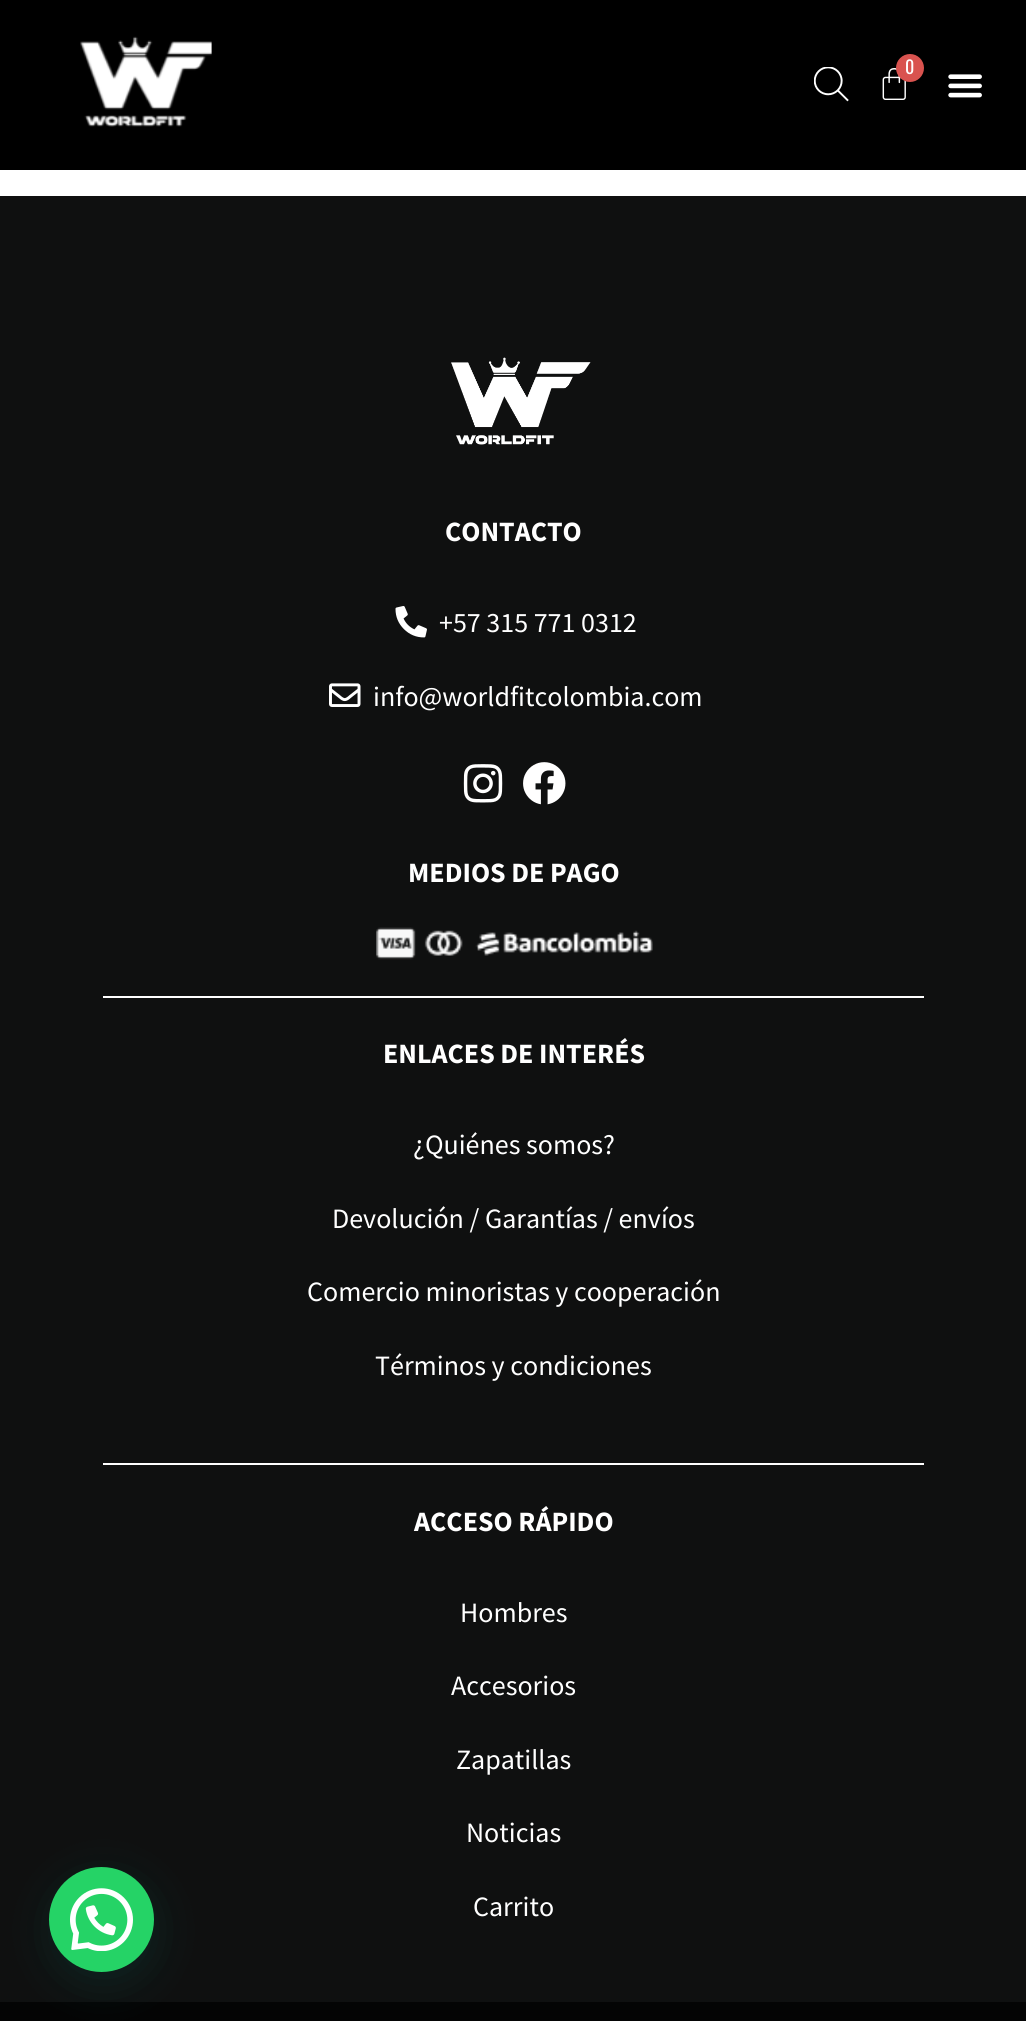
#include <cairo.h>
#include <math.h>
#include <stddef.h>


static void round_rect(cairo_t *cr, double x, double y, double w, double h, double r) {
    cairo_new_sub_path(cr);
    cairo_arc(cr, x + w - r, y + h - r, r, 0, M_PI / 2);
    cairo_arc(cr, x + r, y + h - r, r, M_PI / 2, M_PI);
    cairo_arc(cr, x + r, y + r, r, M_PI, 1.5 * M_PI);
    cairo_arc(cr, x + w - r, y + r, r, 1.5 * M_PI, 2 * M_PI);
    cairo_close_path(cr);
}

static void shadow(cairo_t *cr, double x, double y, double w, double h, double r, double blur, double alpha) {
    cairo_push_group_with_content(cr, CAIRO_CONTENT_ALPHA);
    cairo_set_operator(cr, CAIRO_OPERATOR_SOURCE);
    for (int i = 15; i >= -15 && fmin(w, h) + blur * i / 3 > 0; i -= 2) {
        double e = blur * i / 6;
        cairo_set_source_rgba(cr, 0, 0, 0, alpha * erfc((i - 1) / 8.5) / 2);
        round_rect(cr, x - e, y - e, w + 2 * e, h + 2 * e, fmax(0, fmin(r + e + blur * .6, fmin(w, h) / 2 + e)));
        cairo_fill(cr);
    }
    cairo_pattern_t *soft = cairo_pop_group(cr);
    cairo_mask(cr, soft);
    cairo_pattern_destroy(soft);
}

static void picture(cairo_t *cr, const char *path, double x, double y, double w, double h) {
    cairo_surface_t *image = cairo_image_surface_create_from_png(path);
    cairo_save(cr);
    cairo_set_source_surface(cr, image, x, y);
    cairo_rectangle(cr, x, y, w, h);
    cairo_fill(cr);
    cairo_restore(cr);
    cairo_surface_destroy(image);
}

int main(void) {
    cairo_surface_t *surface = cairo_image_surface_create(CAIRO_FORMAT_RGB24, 1026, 2021);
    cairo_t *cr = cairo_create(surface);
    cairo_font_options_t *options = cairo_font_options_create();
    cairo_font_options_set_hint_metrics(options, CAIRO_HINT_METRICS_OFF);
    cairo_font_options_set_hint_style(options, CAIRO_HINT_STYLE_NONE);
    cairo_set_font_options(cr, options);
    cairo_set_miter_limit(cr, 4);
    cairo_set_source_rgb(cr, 1, 1, 1);
    cairo_paint(cr);
    cairo_set_source_rgb(cr, 0, 0, 0);
    cairo_rectangle(cr, 0, 0, 1026, 170);
    cairo_fill(cr);
    picture(cr, "img1.png", 80, 36, 132, 91);
    picture(cr, "img2.png", 814, 67, 35, 35);
    picture(cr, "img3.png", 882, 68, 24, 32);
    cairo_set_source_rgb(cr, 0.851, 0.325, 0.31);
    cairo_arc(cr, 910, 68, 14, 0, 2 * M_PI);
    cairo_fill(cr);
    cairo_select_font_face(cr, "Oswald", CAIRO_FONT_SLANT_NORMAL, CAIRO_FONT_WEIGHT_NORMAL);
    cairo_set_font_size(cr, 18);
    cairo_set_source_rgb(cr, 1, 1, 1);
    cairo_move_to(cr, 905, 74);
    cairo_show_text(cr, "0");
    picture(cr, "img4.png", 948, 74, 34, 24);
    cairo_set_source_rgb(cr, 0.059, 0.063, 0.063);
    cairo_rectangle(cr, 0, 196, 1026, 1806);
    cairo_fill(cr);
    cairo_set_source_rgb(cr, 0.016, 0.016, 0.016);
    cairo_rectangle(cr, 0, 2002, 1026, 19);
    cairo_fill(cr);
    cairo_set_source_rgb(cr, 0.027, 0.369, 0.329);
    shadow(cr, 51, 1878, 105, 105, 52.5, 21, 0.24);
    cairo_set_source_rgb(cr, 0.145, 0.827, 0.4);
    cairo_arc(cr, 101.5, 1919.5, 52.5, 0, 2 * M_PI);
    cairo_fill(cr);
    picture(cr, "img5.png", 70, 1888, 63, 63);
    picture(cr, "img6.png", 451, 357, 140, 88);
    cairo_select_font_face(cr, "Source Sans Pro", CAIRO_FONT_SLANT_NORMAL, CAIRO_FONT_WEIGHT_BOLD);
    cairo_set_font_size(cr, 28);
    cairo_set_source_rgb(cr, 1, 1, 1);
    cairo_move_to(cr, 445, 541);
    cairo_show_text(cr, "CONTACTO");
    picture(cr, "img7.png", 395, 606, 32, 32);
    cairo_select_font_face(cr, "Source Sans Pro", CAIRO_FONT_SLANT_NORMAL, CAIRO_FONT_WEIGHT_NORMAL);
    cairo_move_to(cr, 439, 632);
    cairo_show_text(cr, "+57 315 771 0312");
    picture(cr, "img8.png", 329, 683, 32, 24);
    cairo_move_to(cr, 373, 706);
    cairo_show_text(cr, "info@worldfitcolombia.com");
    picture(cr, "img9.png", 463, 764, 40, 39);
    picture(cr, "img10.png", 523, 762, 43, 43);
    cairo_select_font_face(cr, "Source Sans Pro", CAIRO_FONT_SLANT_NORMAL, CAIRO_FONT_WEIGHT_BOLD);
    cairo_move_to(cr, 408, 882);
    cairo_show_text(cr, "MEDIOS DE PAGO");
    picture(cr, "img11.png", 376, 927, 277, 33);
    cairo_rectangle(cr, 103, 996, 821, 2);
    cairo_fill(cr);
    cairo_move_to(cr, 383, 1063);
    cairo_show_text(cr, "ENLACES DE INTERÉS");
    cairo_select_font_face(cr, "Source Sans Pro", CAIRO_FONT_SLANT_NORMAL, CAIRO_FONT_WEIGHT_NORMAL);
    cairo_move_to(cr, 413, 1154);
    cairo_show_text(cr, "¿Quiénes somos?");
    cairo_move_to(cr, 332, 1228);
    cairo_show_text(cr, "Devolución / Garantías / envíos");
    cairo_move_to(cr, 307, 1301);
    cairo_show_text(cr, "Comercio minoristas y cooperación");
    cairo_move_to(cr, 375, 1375);
    cairo_show_text(cr, "Términos y condiciones");
    cairo_rectangle(cr, 103, 1463, 821, 2);
    cairo_fill(cr);
    cairo_select_font_face(cr, "Source Sans Pro", CAIRO_FONT_SLANT_NORMAL, CAIRO_FONT_WEIGHT_BOLD);
    cairo_move_to(cr, 414, 1531);
    cairo_show_text(cr, "ACCESO RÁPIDO");
    cairo_select_font_face(cr, "Source Sans Pro", CAIRO_FONT_SLANT_NORMAL, CAIRO_FONT_WEIGHT_NORMAL);
    cairo_move_to(cr, 460, 1622);
    cairo_show_text(cr, "Hombres");
    cairo_move_to(cr, 451, 1695);
    cairo_show_text(cr, "Accesorios");
    cairo_move_to(cr, 456, 1769);
    cairo_show_text(cr, "Zapatillas");
    cairo_move_to(cr, 466, 1842);
    cairo_show_text(cr, "Noticias");
    cairo_move_to(cr, 473, 1916);
    cairo_show_text(cr, "Carrito");
    cairo_surface_write_to_png(surface, "page.png");
    cairo_font_options_destroy(options);
    cairo_destroy(cr);
    cairo_surface_destroy(surface);
    return 0;
}
